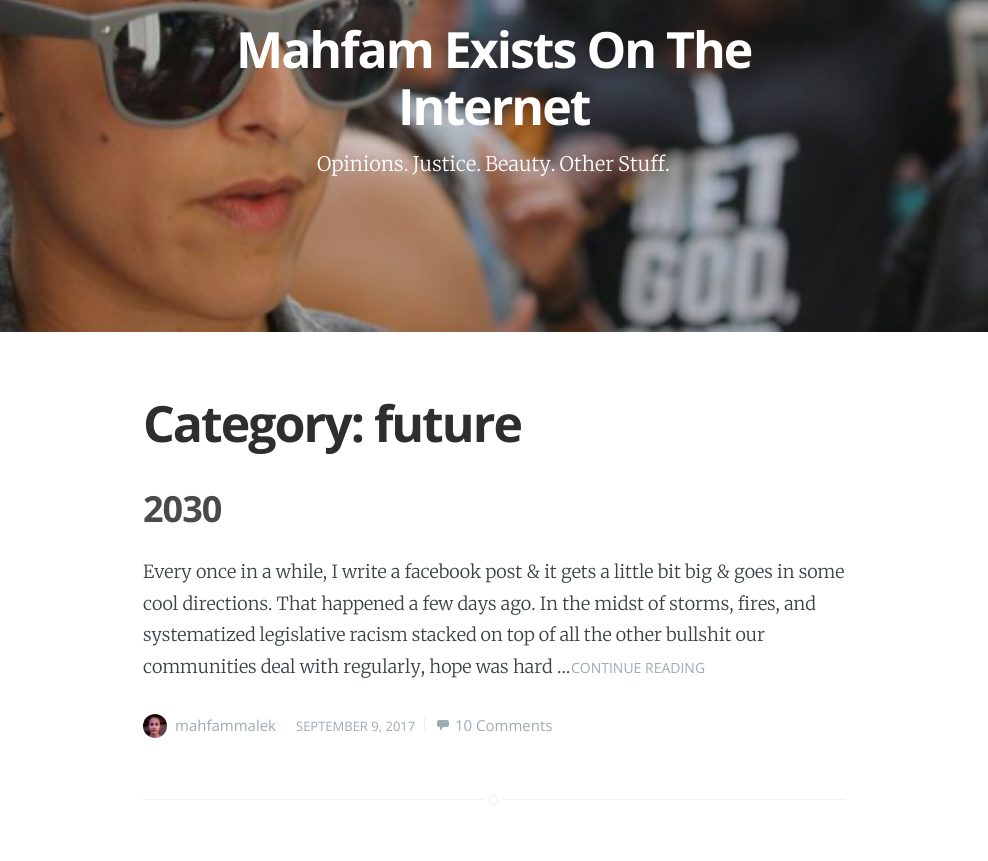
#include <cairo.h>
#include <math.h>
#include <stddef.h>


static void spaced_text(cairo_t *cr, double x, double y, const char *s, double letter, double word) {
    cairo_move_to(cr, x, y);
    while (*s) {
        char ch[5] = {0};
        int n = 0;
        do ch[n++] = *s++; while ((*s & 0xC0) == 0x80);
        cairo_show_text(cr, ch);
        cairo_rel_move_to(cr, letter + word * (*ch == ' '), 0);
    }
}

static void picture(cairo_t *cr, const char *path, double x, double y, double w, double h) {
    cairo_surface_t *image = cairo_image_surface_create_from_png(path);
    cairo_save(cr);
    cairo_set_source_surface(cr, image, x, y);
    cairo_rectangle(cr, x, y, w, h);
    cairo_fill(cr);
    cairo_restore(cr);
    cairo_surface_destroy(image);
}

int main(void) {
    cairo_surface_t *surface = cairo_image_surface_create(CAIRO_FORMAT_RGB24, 988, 861);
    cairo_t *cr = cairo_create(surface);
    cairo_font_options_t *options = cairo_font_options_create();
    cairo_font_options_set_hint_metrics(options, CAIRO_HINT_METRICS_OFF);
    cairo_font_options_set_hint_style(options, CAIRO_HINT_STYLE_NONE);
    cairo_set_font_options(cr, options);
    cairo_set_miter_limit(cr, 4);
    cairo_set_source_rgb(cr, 1, 1, 1);
    cairo_paint(cr);
    picture(cr, "img1.png", 0, 0, 988, 332);
    cairo_select_font_face(cr, "Open Sans", CAIRO_FONT_SLANT_NORMAL, CAIRO_FONT_WEIGHT_BOLD);
    cairo_set_font_size(cr, 50);
    cairo_set_source_rgb(cr, 1, 1, 1);
    spaced_text(cr, 236, 68, "Mahfam Exists On The", -2, 0);
    spaced_text(cr, 398, 125, "Internet", -2, 0);
    cairo_select_font_face(cr, "Merriweather Light", CAIRO_FONT_SLANT_NORMAL, CAIRO_FONT_WEIGHT_NORMAL);
    cairo_set_font_size(cr, 20);
    spaced_text(cr, 317, 171, "Opinions. Justice. Beauty. Other Stuff.", 0.1, -1);
    cairo_select_font_face(cr, "Open Sans", CAIRO_FONT_SLANT_NORMAL, CAIRO_FONT_WEIGHT_BOLD);
    cairo_set_font_size(cr, 50);
    cairo_set_source_rgb(cr, 0.18, 0.18, 0.18);
    spaced_text(cr, 143, 442, "Category: future", -2, 0);
    cairo_set_source_rgb(cr, 0.922, 0.949, 0.965);
    cairo_rectangle(cr, 143, 799, 702, 1);
    cairo_fill(cr);
    cairo_set_font_size(cr, 36);
    cairo_set_source_rgb(cr, 0.29, 0.29, 0.29);
    spaced_text(cr, 143, 522, "2030", -1, 0);
    cairo_select_font_face(cr, "Merriweather Light", CAIRO_FONT_SLANT_NORMAL, CAIRO_FONT_WEIGHT_NORMAL);
    cairo_set_font_size(cr, 18);
    cairo_set_source_rgb(cr, 0.227, 0.255, 0.271);
    cairo_move_to(cr, 143, 578);
    cairo_show_text(cr, "Every once in a while, I write a facebook post & it gets a little bit big & goes in some");
    cairo_move_to(cr, 143, 610);
    cairo_show_text(cr, "cool directions. That happened a few days ago. In the midst of storms, fires, and");
    spaced_text(cr, 143, 641, "systematized legislative racism stacked on top of all the other bullshit our", 0, -0.25);
    cairo_move_to(cr, 143, 673);
    cairo_show_text(cr, "communities deal with regularly, hope was hard …");
    cairo_select_font_face(cr, "Open Sans", CAIRO_FONT_SLANT_NORMAL, CAIRO_FONT_WEIGHT_NORMAL);
    cairo_set_font_size(cr, 14);
    cairo_set_source_rgb(cr, 0.62, 0.671, 0.702);
    cairo_move_to(cr, 571, 673);
    cairo_show_text(cr, "CONTINUE READING");
    picture(cr, "img2.png", 143, 714, 24, 24);
    cairo_set_font_size(cr, 15);
    cairo_move_to(cr, 175, 731);
    cairo_show_text(cr, "mahfammalek");
    cairo_set_font_size(cr, 13);
    cairo_move_to(cr, 296, 731);
    cairo_show_text(cr, "SEPTEMBER 9, 2017");
    cairo_set_source_rgb(cr, 0.922, 0.949, 0.965);
    cairo_rectangle(cr, 424, 716, 1, 16);
    cairo_fill(cr);
    picture(cr, "img3.png", 437, 720, 12, 11);
    cairo_set_font_size(cr, 15);
    cairo_set_source_rgb(cr, 0.62, 0.671, 0.702);
    cairo_move_to(cr, 455, 731);
    cairo_show_text(cr, "10 Comments");
    cairo_new_path(cr);
    cairo_arc(cr, 493, 800, 7, 0, 2 * M_PI);
    cairo_set_source_rgb(cr, 1, 1, 1);
    cairo_set_line_width(cr, 4);
    cairo_stroke(cr);
    cairo_arc(cr, 493, 800, 4.5, 0, 2 * M_PI);
    cairo_fill_preserve(cr);
    cairo_set_source_rgb(cr, 0.922, 0.949, 0.965);
    cairo_set_line_width(cr, 1);
    cairo_stroke(cr);
    cairo_surface_write_to_png(surface, "page.png");
    cairo_font_options_destroy(options);
    cairo_destroy(cr);
    cairo_surface_destroy(surface);
    return 0;
}
